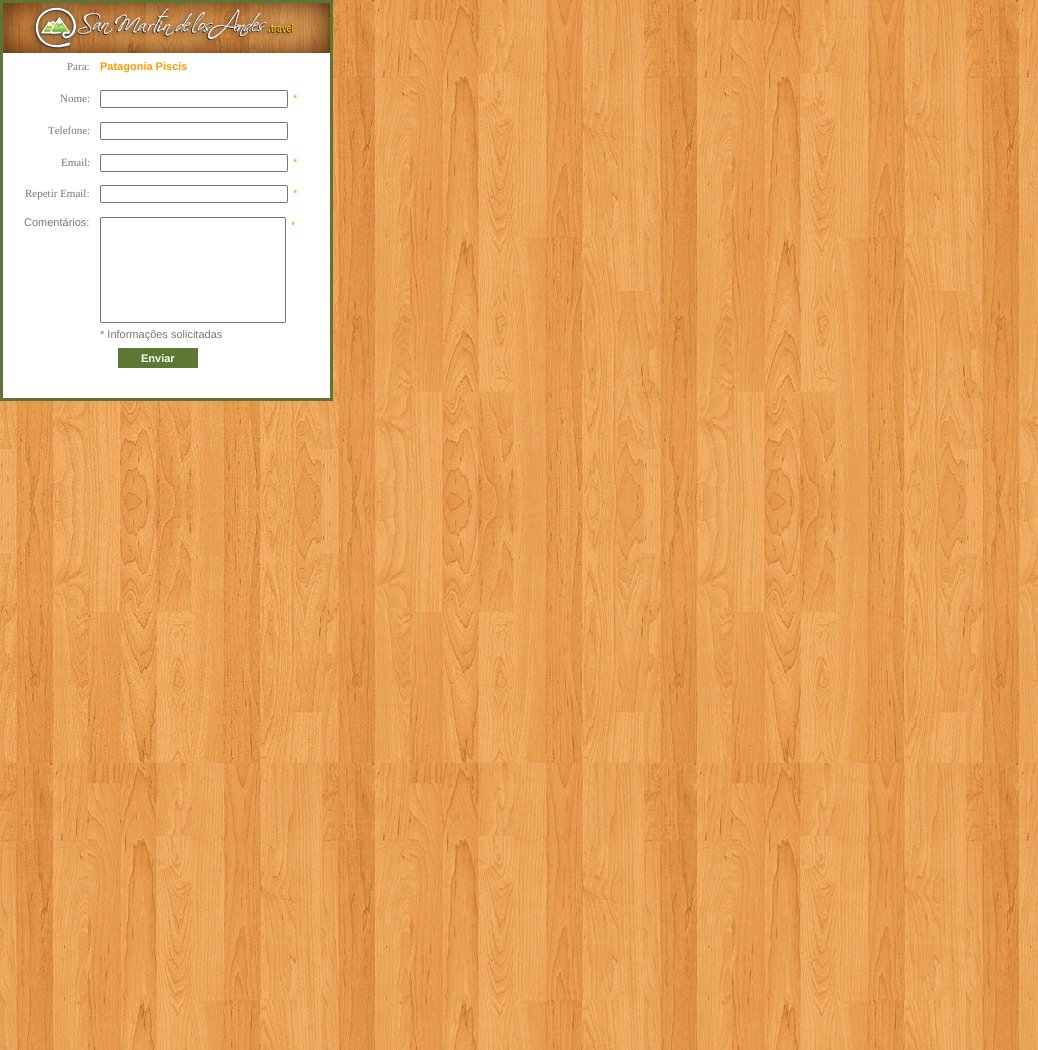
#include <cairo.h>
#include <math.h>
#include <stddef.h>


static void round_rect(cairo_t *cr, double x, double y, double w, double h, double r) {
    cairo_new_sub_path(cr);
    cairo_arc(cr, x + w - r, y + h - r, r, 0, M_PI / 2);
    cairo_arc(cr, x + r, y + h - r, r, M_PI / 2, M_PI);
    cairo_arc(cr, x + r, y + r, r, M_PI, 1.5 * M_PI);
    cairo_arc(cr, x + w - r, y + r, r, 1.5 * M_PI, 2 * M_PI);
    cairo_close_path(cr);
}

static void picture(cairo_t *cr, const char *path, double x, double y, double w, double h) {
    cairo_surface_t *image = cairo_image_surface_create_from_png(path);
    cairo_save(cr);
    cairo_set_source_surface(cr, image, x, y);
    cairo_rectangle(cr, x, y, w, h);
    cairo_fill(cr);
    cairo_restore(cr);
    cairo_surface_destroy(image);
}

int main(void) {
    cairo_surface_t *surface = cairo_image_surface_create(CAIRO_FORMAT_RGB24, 1038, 1050);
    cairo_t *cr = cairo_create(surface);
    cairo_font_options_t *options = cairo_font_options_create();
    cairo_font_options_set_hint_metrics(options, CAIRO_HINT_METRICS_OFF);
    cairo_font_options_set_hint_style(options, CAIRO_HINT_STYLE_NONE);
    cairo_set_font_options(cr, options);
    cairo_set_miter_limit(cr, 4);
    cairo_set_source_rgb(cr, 1, 1, 1);
    cairo_paint(cr);
    picture(cr, "img1.png", 0, 0, 1038, 1050);
    cairo_set_source_rgb(cr, 1, 1, 1);
    cairo_rectangle(cr, 3, 53, 327, 345);
    cairo_fill(cr);
    cairo_set_source_rgb(cr, 0.361, 0.459, 0.208);
    cairo_rectangle(cr, 0, 0, 333, 3);
    cairo_fill(cr);
    cairo_rectangle(cr, 330, 0, 3, 401);
    cairo_fill(cr);
    cairo_rectangle(cr, 0, 398, 333, 3);
    cairo_fill(cr);
    cairo_rectangle(cr, 0, 0, 3, 401);
    cairo_fill(cr);
    picture(cr, "img2.png", 3, 3, 327, 50);
    cairo_select_font_face(cr, "Liberation Serif", CAIRO_FONT_SLANT_NORMAL, CAIRO_FONT_WEIGHT_NORMAL);
    cairo_set_font_size(cr, 11);
    cairo_set_source_rgb(cr, 0.478, 0.455, 0.42);
    cairo_move_to(cr, 67, 70);
    cairo_show_text(cr, "Para:");
    cairo_select_font_face(cr, "Liberation Sans", CAIRO_FONT_SLANT_NORMAL, CAIRO_FONT_WEIGHT_BOLD);
    cairo_set_source_rgb(cr, 1, 0.6, 0);
    cairo_move_to(cr, 100, 70);
    cairo_show_text(cr, "Patagonia Piscis");
    cairo_select_font_face(cr, "Liberation Serif", CAIRO_FONT_SLANT_NORMAL, CAIRO_FONT_WEIGHT_NORMAL);
    cairo_set_source_rgb(cr, 0.478, 0.455, 0.42);
    cairo_move_to(cr, 60, 102);
    cairo_show_text(cr, "Nome:");
    round_rect(cr, 100.5, 90.5, 187, 17, 1.5);
    cairo_set_source_rgb(cr, 0.463, 0.463, 0.463);
    cairo_set_line_width(cr, 1);
    cairo_stroke(cr);
    cairo_select_font_face(cr, "Liberation Sans", CAIRO_FONT_SLANT_NORMAL, CAIRO_FONT_WEIGHT_NORMAL);
    cairo_set_source_rgb(cr, 1, 0.6, 0);
    cairo_move_to(cr, 293, 102);
    cairo_show_text(cr, "*");
    cairo_select_font_face(cr, "Liberation Serif", CAIRO_FONT_SLANT_NORMAL, CAIRO_FONT_WEIGHT_NORMAL);
    cairo_set_source_rgb(cr, 0.478, 0.455, 0.42);
    cairo_move_to(cr, 48, 134);
    cairo_show_text(cr, "Telefone:");
    round_rect(cr, 100.5, 122.5, 187, 17, 1.5);
    cairo_set_source_rgb(cr, 0.463, 0.463, 0.463);
    cairo_stroke(cr);
    cairo_set_source_rgb(cr, 0.478, 0.455, 0.42);
    cairo_move_to(cr, 61, 166);
    cairo_show_text(cr, "Email:");
    round_rect(cr, 100.5, 154.5, 187, 17, 1.5);
    cairo_set_source_rgb(cr, 0.463, 0.463, 0.463);
    cairo_stroke(cr);
    cairo_select_font_face(cr, "Liberation Sans", CAIRO_FONT_SLANT_NORMAL, CAIRO_FONT_WEIGHT_NORMAL);
    cairo_set_source_rgb(cr, 1, 0.6, 0);
    cairo_move_to(cr, 293, 166);
    cairo_show_text(cr, "*");
    cairo_select_font_face(cr, "Liberation Serif", CAIRO_FONT_SLANT_NORMAL, CAIRO_FONT_WEIGHT_NORMAL);
    cairo_set_source_rgb(cr, 0.478, 0.455, 0.42);
    cairo_move_to(cr, 25, 197);
    cairo_show_text(cr, "Repetir Email:");
    round_rect(cr, 100.5, 185.5, 187, 17, 1.5);
    cairo_set_source_rgb(cr, 0.463, 0.463, 0.463);
    cairo_stroke(cr);
    cairo_select_font_face(cr, "Liberation Sans", CAIRO_FONT_SLANT_NORMAL, CAIRO_FONT_WEIGHT_NORMAL);
    cairo_set_source_rgb(cr, 1, 0.6, 0);
    cairo_move_to(cr, 293, 197);
    cairo_show_text(cr, "*");
    cairo_set_source_rgb(cr, 0.478, 0.455, 0.42);
    cairo_move_to(cr, 24, 226);
    cairo_show_text(cr, "Comentários:");
    round_rect(cr, 100.5, 217.5, 185, 105, 1.5);
    cairo_set_source_rgb(cr, 0.463, 0.463, 0.463);
    cairo_stroke(cr);
    cairo_set_source_rgb(cr, 1, 0.6, 0);
    cairo_move_to(cr, 291, 229);
    cairo_show_text(cr, "*");
    cairo_set_source_rgb(cr, 0.478, 0.455, 0.42);
    cairo_move_to(cr, 100, 338);
    cairo_show_text(cr, "* Informações solicitadas");
    cairo_set_source_rgb(cr, 0.361, 0.471, 0.2);
    cairo_rectangle(cr, 118, 348, 80, 20);
    cairo_fill(cr);
    cairo_select_font_face(cr, "Liberation Sans", CAIRO_FONT_SLANT_NORMAL, CAIRO_FONT_WEIGHT_BOLD);
    cairo_set_source_rgb(cr, 1, 1, 1);
    cairo_move_to(cr, 141, 362);
    cairo_show_text(cr, "Enviar");
    cairo_surface_write_to_png(surface, "page.png");
    cairo_font_options_destroy(options);
    cairo_destroy(cr);
    cairo_surface_destroy(surface);
    return 0;
}
